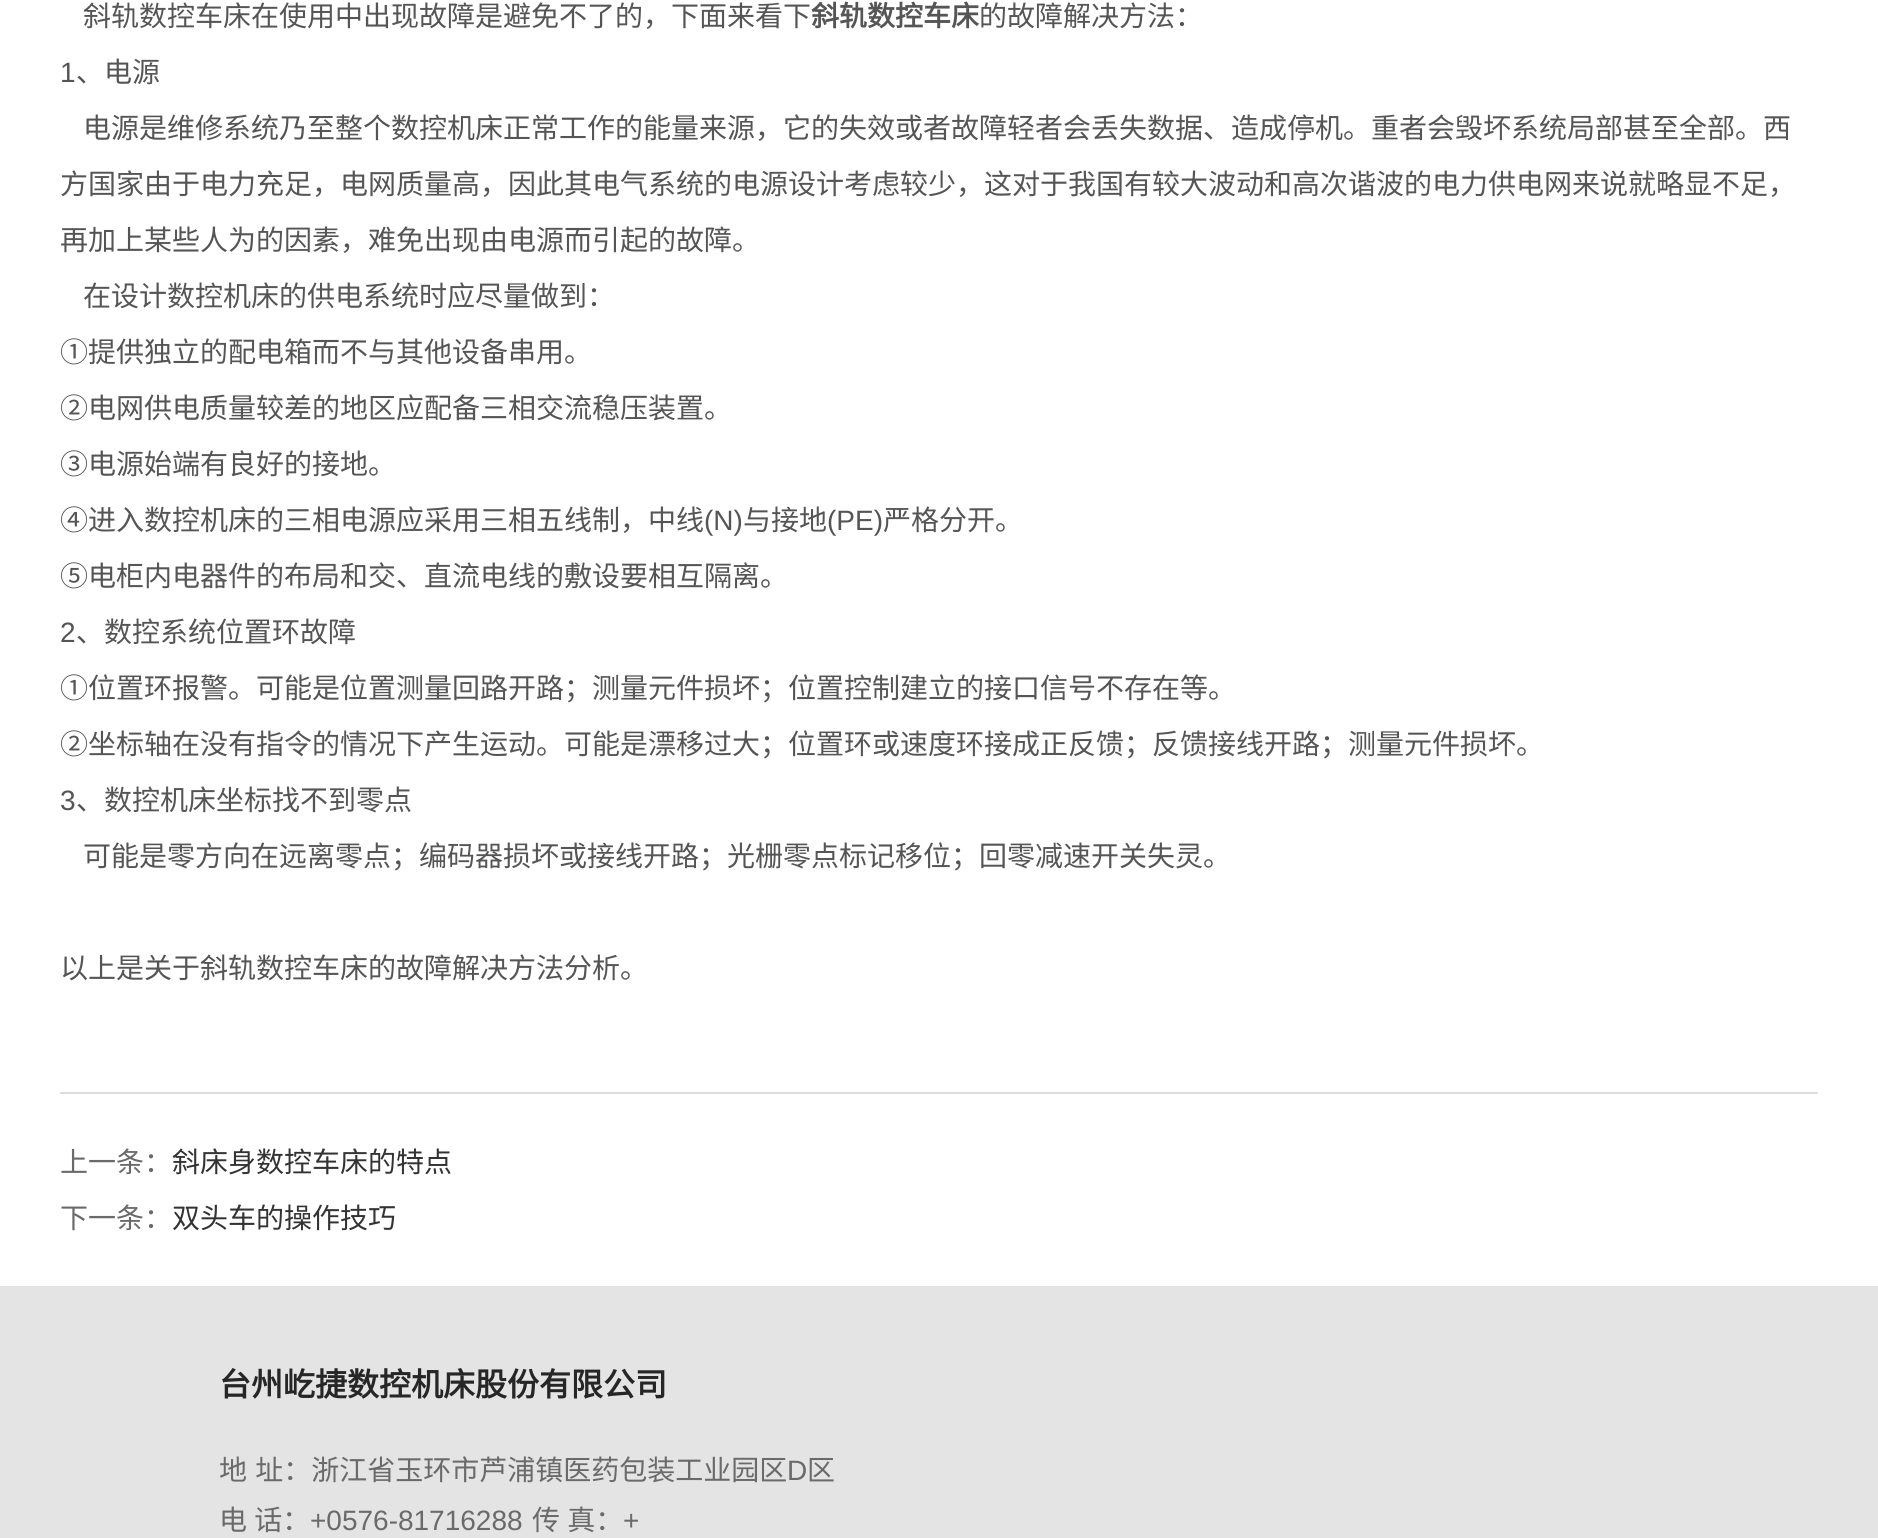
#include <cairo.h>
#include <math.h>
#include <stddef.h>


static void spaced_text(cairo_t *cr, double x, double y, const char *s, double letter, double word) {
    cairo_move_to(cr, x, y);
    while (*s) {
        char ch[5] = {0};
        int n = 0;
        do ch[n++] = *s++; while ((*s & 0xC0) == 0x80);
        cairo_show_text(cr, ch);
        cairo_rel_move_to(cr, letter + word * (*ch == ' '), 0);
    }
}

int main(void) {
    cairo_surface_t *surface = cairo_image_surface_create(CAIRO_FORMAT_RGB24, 1878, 1538);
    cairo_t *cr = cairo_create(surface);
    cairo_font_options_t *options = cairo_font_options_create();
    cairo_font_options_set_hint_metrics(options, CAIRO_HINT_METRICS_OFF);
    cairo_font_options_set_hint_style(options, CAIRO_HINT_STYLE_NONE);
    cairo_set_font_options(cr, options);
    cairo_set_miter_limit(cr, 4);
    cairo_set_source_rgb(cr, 1, 1, 1);
    cairo_paint(cr);
    cairo_select_font_face(cr, "Noto Sans CJK SC", CAIRO_FONT_SLANT_NORMAL, CAIRO_FONT_WEIGHT_NORMAL);
    cairo_set_font_size(cr, 28);
    cairo_set_source_rgb(cr, 0.333, 0.333, 0.333);
    cairo_move_to(cr, 83, 26);
    cairo_show_text(cr, "斜轨数控车床在使用中出现故障是避免不了的，下面来看下");
    cairo_select_font_face(cr, "Noto Sans CJK SC", CAIRO_FONT_SLANT_NORMAL, CAIRO_FONT_WEIGHT_BOLD);
    cairo_move_to(cr, 811, 26);
    cairo_show_text(cr, "斜轨数控车床");
    cairo_select_font_face(cr, "Noto Sans CJK SC", CAIRO_FONT_SLANT_NORMAL, CAIRO_FONT_WEIGHT_NORMAL);
    cairo_move_to(cr, 979, 26);
    cairo_show_text(cr, "的故障解决方法：");
    cairo_select_font_face(cr, "Liberation Sans", CAIRO_FONT_SLANT_NORMAL, CAIRO_FONT_WEIGHT_NORMAL);
    cairo_move_to(cr, 60, 82);
    cairo_show_text(cr, "1");
    cairo_select_font_face(cr, "Noto Sans CJK SC", CAIRO_FONT_SLANT_NORMAL, CAIRO_FONT_WEIGHT_NORMAL);
    cairo_move_to(cr, 76, 82);
    cairo_show_text(cr, "、电源");
    cairo_move_to(cr, 83, 138);
    cairo_show_text(cr, "电源是维修系统乃至整个数控机床正常工作的能量来源，它的失效或者故障轻者会丢失数据、造成停机。重者会毁坏系统局部甚至全部。西");
    cairo_move_to(cr, 60, 194);
    cairo_show_text(cr, "方国家由于电力充足，电网质量高，因此其电气系统的电源设计考虑较少，这对于我国有较大波动和高次谐波的电力供电网来说就略显不足，");
    cairo_move_to(cr, 60, 250);
    cairo_show_text(cr, "再加上某些人为的因素，难免出现由电源而引起的故障。");
    cairo_move_to(cr, 83, 306);
    cairo_show_text(cr, "在设计数控机床的供电系统时应尽量做到：");
    cairo_move_to(cr, 60, 362);
    cairo_show_text(cr, "①提供独立的配电箱而不与其他设备串用。");
    cairo_move_to(cr, 60, 418);
    cairo_show_text(cr, "②电网供电质量较差的地区应配备三相交流稳压装置。");
    cairo_move_to(cr, 60, 474);
    cairo_show_text(cr, "③电源始端有良好的接地。");
    cairo_move_to(cr, 60, 530);
    cairo_show_text(cr, "④进入数控机床的三相电源应采用三相五线制，中线");
    cairo_select_font_face(cr, "Liberation Sans", CAIRO_FONT_SLANT_NORMAL, CAIRO_FONT_WEIGHT_NORMAL);
    cairo_move_to(cr, 704, 530);
    cairo_show_text(cr, "(N)");
    cairo_select_font_face(cr, "Noto Sans CJK SC", CAIRO_FONT_SLANT_NORMAL, CAIRO_FONT_WEIGHT_NORMAL);
    cairo_move_to(cr, 743, 530);
    cairo_show_text(cr, "与接地");
    cairo_select_font_face(cr, "Liberation Sans", CAIRO_FONT_SLANT_NORMAL, CAIRO_FONT_WEIGHT_NORMAL);
    cairo_move_to(cr, 827, 530);
    cairo_show_text(cr, "(PE)");
    cairo_select_font_face(cr, "Noto Sans CJK SC", CAIRO_FONT_SLANT_NORMAL, CAIRO_FONT_WEIGHT_NORMAL);
    cairo_move_to(cr, 883, 530);
    cairo_show_text(cr, "严格分开。");
    cairo_move_to(cr, 60, 586);
    cairo_show_text(cr, "⑤电柜内电器件的布局和交、直流电线的敷设要相互隔离。");
    cairo_select_font_face(cr, "Liberation Sans", CAIRO_FONT_SLANT_NORMAL, CAIRO_FONT_WEIGHT_NORMAL);
    cairo_move_to(cr, 60, 642);
    cairo_show_text(cr, "2");
    cairo_select_font_face(cr, "Noto Sans CJK SC", CAIRO_FONT_SLANT_NORMAL, CAIRO_FONT_WEIGHT_NORMAL);
    cairo_move_to(cr, 76, 642);
    cairo_show_text(cr, "、数控系统位置环故障");
    cairo_move_to(cr, 60, 698);
    cairo_show_text(cr, "①位置环报警。可能是位置测量回路开路；测量元件损坏；位置控制建立的接口信号不存在等。");
    cairo_move_to(cr, 60, 754);
    cairo_show_text(cr, "②坐标轴在没有指令的情况下产生运动。可能是漂移过大；位置环或速度环接成正反馈；反馈接线开路；测量元件损坏。");
    cairo_select_font_face(cr, "Liberation Sans", CAIRO_FONT_SLANT_NORMAL, CAIRO_FONT_WEIGHT_NORMAL);
    cairo_move_to(cr, 60, 810);
    cairo_show_text(cr, "3");
    cairo_select_font_face(cr, "Noto Sans CJK SC", CAIRO_FONT_SLANT_NORMAL, CAIRO_FONT_WEIGHT_NORMAL);
    cairo_move_to(cr, 76, 810);
    cairo_show_text(cr, "、数控机床坐标找不到零点");
    cairo_move_to(cr, 83, 866);
    cairo_show_text(cr, "可能是零方向在远离零点；编码器损坏或接线开路；光栅零点标记移位；回零减速开关失灵。");
    cairo_move_to(cr, 60, 978);
    cairo_show_text(cr, "以上是关于斜轨数控车床的故障解决方法分析。");
    cairo_set_source_rgb(cr, 0.867, 0.867, 0.867);
    cairo_rectangle(cr, 60, 1092, 1758, 2);
    cairo_fill(cr);
    cairo_set_source_rgb(cr, 0.416, 0.416, 0.416);
    cairo_move_to(cr, 60, 1172);
    cairo_show_text(cr, "上一条：");
    cairo_set_source_rgb(cr, 0.2, 0.2, 0.2);
    cairo_move_to(cr, 172, 1172);
    cairo_show_text(cr, "斜床身数控车床的特点");
    cairo_set_source_rgb(cr, 0.416, 0.416, 0.416);
    cairo_move_to(cr, 60, 1228);
    cairo_show_text(cr, "下一条：");
    cairo_set_source_rgb(cr, 0.2, 0.2, 0.2);
    cairo_move_to(cr, 172, 1228);
    cairo_show_text(cr, "双头车的操作技巧");
    cairo_set_source_rgb(cr, 0.894, 0.894, 0.894);
    cairo_rectangle(cr, 0, 1286, 1878, 252);
    cairo_fill(cr);
    cairo_select_font_face(cr, "Noto Sans CJK SC", CAIRO_FONT_SLANT_NORMAL, CAIRO_FONT_WEIGHT_BOLD);
    cairo_set_font_size(cr, 32);
    cairo_set_source_rgb(cr, 0.149, 0.149, 0.149);
    cairo_move_to(cr, 219, 1396);
    cairo_show_text(cr, "台州屹捷数控机床股份有限公司");
    cairo_select_font_face(cr, "Noto Sans CJK SC", CAIRO_FONT_SLANT_NORMAL, CAIRO_FONT_WEIGHT_NORMAL);
    cairo_set_font_size(cr, 28);
    cairo_set_source_rgb(cr, 0.416, 0.416, 0.416);
    spaced_text(cr, 219, 1480, "地 址：浙江省玉环市芦浦镇医药包装工业园区", 0, 2);
    cairo_select_font_face(cr, "Liberation Sans", CAIRO_FONT_SLANT_NORMAL, CAIRO_FONT_WEIGHT_NORMAL);
    cairo_move_to(cr, 787, 1480);
    cairo_show_text(cr, "D");
    cairo_select_font_face(cr, "Noto Sans CJK SC", CAIRO_FONT_SLANT_NORMAL, CAIRO_FONT_WEIGHT_NORMAL);
    cairo_move_to(cr, 807, 1480);
    cairo_show_text(cr, "区");
    spaced_text(cr, 219, 1530, "电 话：", 0, 1);
    cairo_select_font_face(cr, "Liberation Sans", CAIRO_FONT_SLANT_NORMAL, CAIRO_FONT_WEIGHT_NORMAL);
    cairo_move_to(cr, 310, 1530);
    cairo_show_text(cr, "+0576-81716288");
    cairo_select_font_face(cr, "Noto Sans CJK SC", CAIRO_FONT_SLANT_NORMAL, CAIRO_FONT_WEIGHT_NORMAL);
    spaced_text(cr, 532, 1530, "传 真：", 0, 1);
    cairo_select_font_face(cr, "Liberation Sans", CAIRO_FONT_SLANT_NORMAL, CAIRO_FONT_WEIGHT_NORMAL);
    cairo_move_to(cr, 623, 1530);
    cairo_show_text(cr, "+");
    cairo_surface_write_to_png(surface, "page.png");
    cairo_font_options_destroy(options);
    cairo_destroy(cr);
    cairo_surface_destroy(surface);
    return 0;
}
